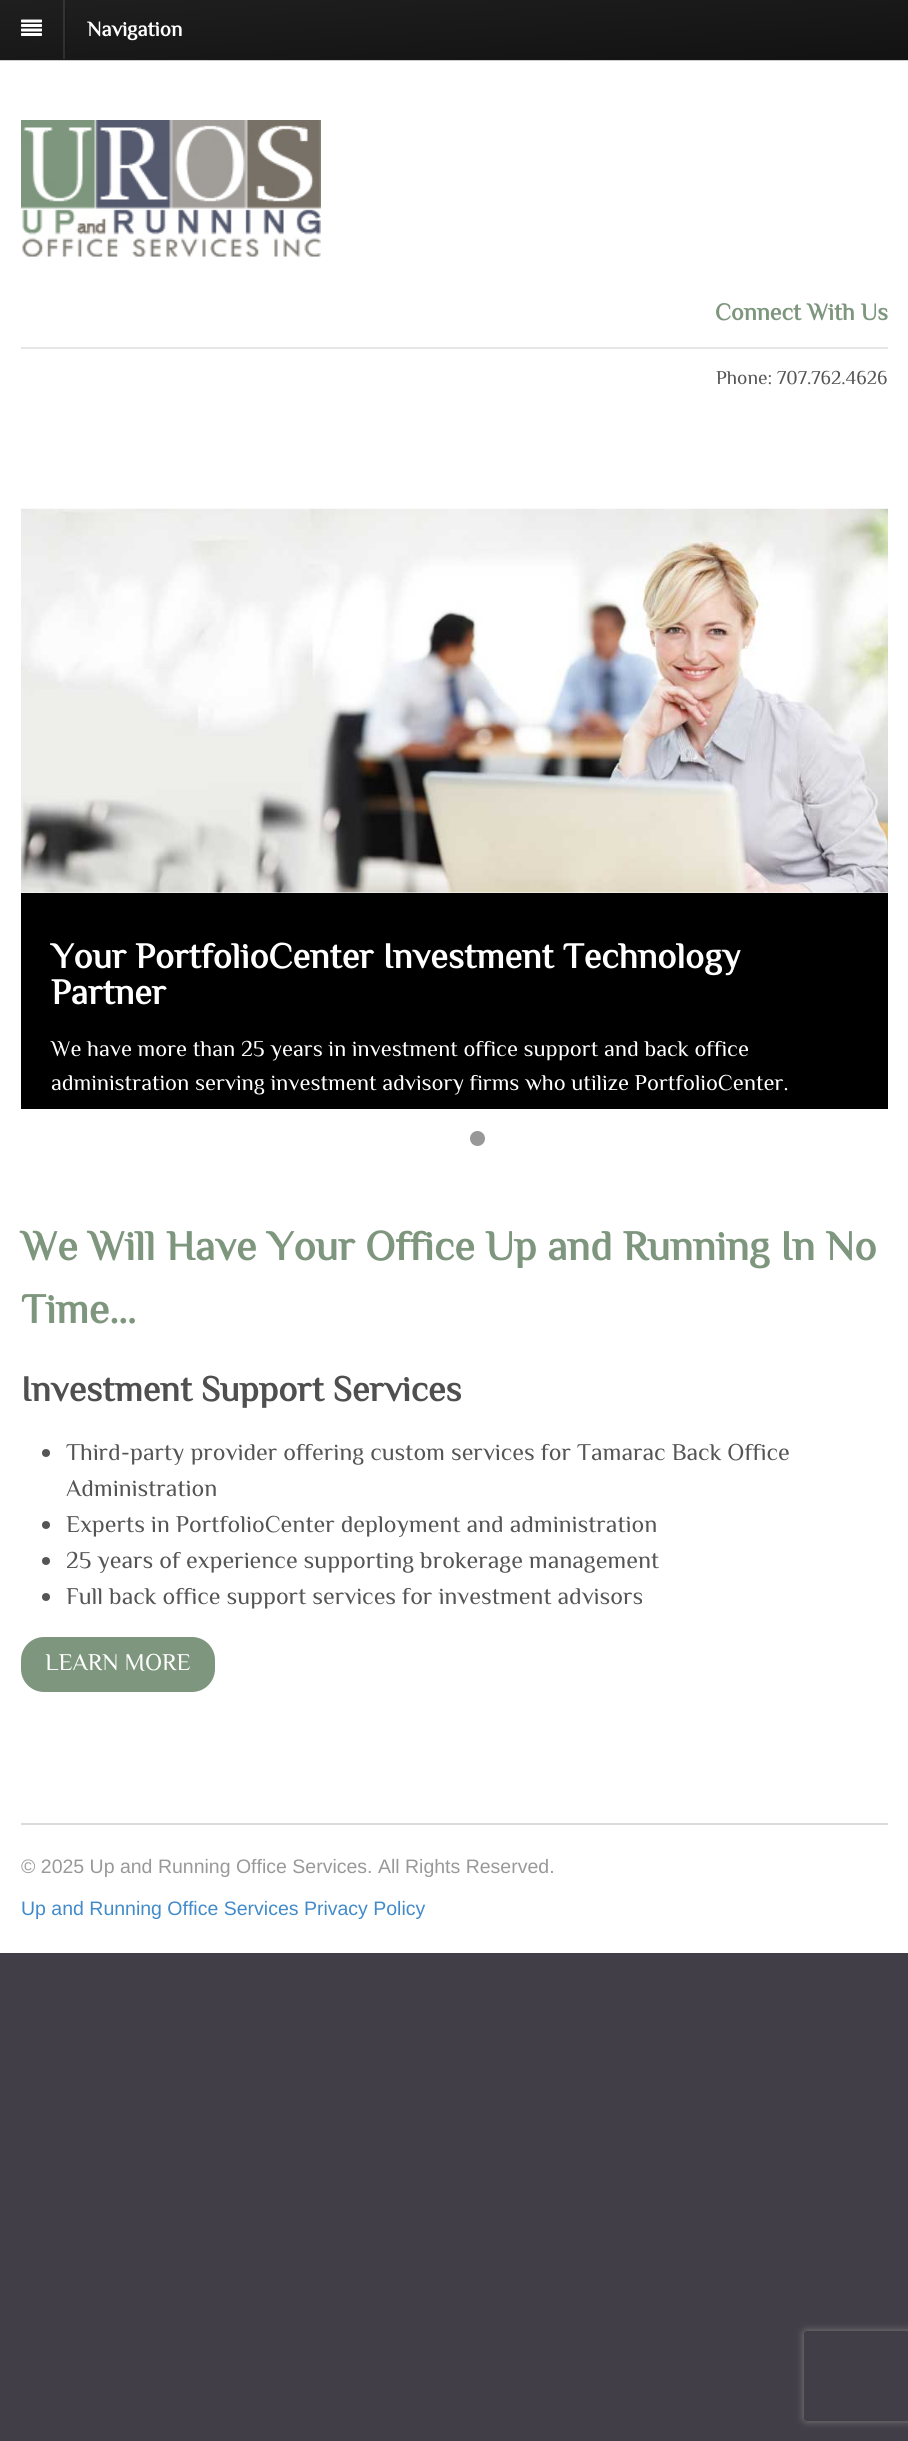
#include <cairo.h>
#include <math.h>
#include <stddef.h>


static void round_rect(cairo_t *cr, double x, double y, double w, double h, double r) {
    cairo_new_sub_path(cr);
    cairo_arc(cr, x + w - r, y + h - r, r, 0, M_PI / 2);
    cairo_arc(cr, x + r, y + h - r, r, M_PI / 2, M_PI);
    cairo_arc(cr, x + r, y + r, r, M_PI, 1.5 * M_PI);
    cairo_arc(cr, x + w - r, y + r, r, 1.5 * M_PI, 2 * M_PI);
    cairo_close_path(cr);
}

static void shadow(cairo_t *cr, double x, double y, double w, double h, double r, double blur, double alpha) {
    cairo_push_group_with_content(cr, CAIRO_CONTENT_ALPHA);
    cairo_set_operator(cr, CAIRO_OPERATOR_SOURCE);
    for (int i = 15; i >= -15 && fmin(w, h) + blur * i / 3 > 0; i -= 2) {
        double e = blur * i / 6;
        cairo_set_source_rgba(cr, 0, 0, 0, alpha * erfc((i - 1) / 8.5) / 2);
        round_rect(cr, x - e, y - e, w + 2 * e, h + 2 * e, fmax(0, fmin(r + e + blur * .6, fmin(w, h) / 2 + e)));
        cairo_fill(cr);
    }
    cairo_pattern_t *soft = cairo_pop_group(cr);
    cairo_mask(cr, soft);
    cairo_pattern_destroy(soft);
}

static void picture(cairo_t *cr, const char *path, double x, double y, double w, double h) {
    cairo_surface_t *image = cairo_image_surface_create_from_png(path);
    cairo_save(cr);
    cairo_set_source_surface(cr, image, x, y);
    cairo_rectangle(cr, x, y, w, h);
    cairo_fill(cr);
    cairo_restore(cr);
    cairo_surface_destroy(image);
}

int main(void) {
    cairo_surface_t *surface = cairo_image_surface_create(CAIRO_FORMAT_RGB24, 908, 2441);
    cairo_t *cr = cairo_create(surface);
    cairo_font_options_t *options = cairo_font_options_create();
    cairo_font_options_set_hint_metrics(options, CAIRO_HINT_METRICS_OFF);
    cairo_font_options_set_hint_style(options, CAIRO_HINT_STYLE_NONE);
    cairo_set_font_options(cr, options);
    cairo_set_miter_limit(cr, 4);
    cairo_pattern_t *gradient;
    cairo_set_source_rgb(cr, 0.259, 0.243, 0.278);
    cairo_paint(cr);
    cairo_set_source_rgb(cr, 1, 1, 1);
    cairo_rectangle(cr, 0, 61, 908, 1892);
    cairo_fill(cr);
    cairo_set_source_rgb(cr, 0.8, 0.8, 0.8);
    cairo_rectangle(cr, 0, 60, 908, 1);
    cairo_fill(cr);
    gradient = cairo_pattern_create_linear(451, -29, 458, 88);
    cairo_pattern_add_color_stop_rgba(gradient, 0, 0.122, 0.122, 0.122, 1);
    cairo_pattern_add_color_stop_rgba(gradient, 1, 0.071, 0.071, 0.071, 1);
    cairo_set_source(cr, gradient);
    cairo_pattern_destroy(gradient);
    cairo_rectangle(cr, 0, 0, 908, 59);
    cairo_fill(cr);
    gradient = cairo_pattern_create_linear(451, -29, 458, 88);
    cairo_pattern_add_color_stop_rgba(gradient, 0, 0.11, 0.11, 0.11, 1);
    cairo_pattern_add_color_stop_rgba(gradient, 1, 0.063, 0.063, 0.063, 1);
    cairo_set_source(cr, gradient);
    cairo_pattern_destroy(gradient);
    cairo_rectangle(cr, 65, 6, 2, 45);
    cairo_fill(cr);
    gradient = cairo_pattern_create_linear(451, -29, 458, 88);
    cairo_pattern_add_color_stop_rgba(gradient, 0, 0.208, 0.208, 0.208, 1);
    cairo_pattern_add_color_stop_rgba(gradient, 1, 0.165, 0.165, 0.165, 1);
    cairo_set_source(cr, gradient);
    cairo_pattern_destroy(gradient);
    cairo_rectangle(cr, 63, 0, 2, 59);
    cairo_fill(cr);
    gradient = cairo_pattern_create_linear(451, 29, 458, 146);
    cairo_pattern_add_color_stop_rgba(gradient, 0, 0.098, 0.098, 0.098, 1);
    cairo_pattern_add_color_stop_rgba(gradient, 1, 0.055, 0.055, 0.055, 1);
    cairo_set_source(cr, gradient);
    cairo_pattern_destroy(gradient);
    cairo_rectangle(cr, 0, 59, 908, 1);
    cairo_fill(cr);
    picture(cr, "img1.png", 21, 19, 21, 17);
    cairo_select_font_face(cr, "Philosopher", CAIRO_FONT_SLANT_NORMAL, CAIRO_FONT_WEIGHT_BOLD);
    cairo_set_font_size(cr, 21);
    cairo_set_source_rgb(cr, 1, 1, 1);
    cairo_move_to(cr, 87, 36);
    cairo_show_text(cr, "Navigation");
    picture(cr, "img2.png", 21, 120, 300, 137);
    cairo_set_source_rgb(cr, 0.902, 0.902, 0.902);
    cairo_rectangle(cr, 21, 347, 867, 2);
    cairo_fill(cr);
    cairo_set_font_size(cr, 24);
    cairo_set_source_rgb(cr, 0.49, 0.588, 0.49);
    cairo_move_to(cr, 715, 320);
    cairo_show_text(cr, "Connect With Us");
    cairo_select_font_face(cr, "Philosopher", CAIRO_FONT_SLANT_NORMAL, CAIRO_FONT_WEIGHT_NORMAL);
    cairo_set_font_size(cr, 19.5);
    cairo_set_source_rgb(cr, 0.333, 0.333, 0.333);
    cairo_move_to(cr, 716, 384);
    cairo_show_text(cr, "Phone: 707.762.4626");
    picture(cr, "img3.png", 21, 508, 867, 385);
    cairo_set_source_rgb(cr, 0, 0, 0);
    cairo_rectangle(cr, 21, 893, 867, 216);
    cairo_fill(cr);
    cairo_select_font_face(cr, "Philosopher", CAIRO_FONT_SLANT_NORMAL, CAIRO_FONT_WEIGHT_BOLD);
    cairo_set_font_size(cr, 36);
    cairo_set_source_rgb(cr, 1, 1, 1);
    cairo_move_to(cr, 51, 968);
    cairo_show_text(cr, "Your PortfolioCenter Investment Technology");
    cairo_move_to(cr, 51, 1004);
    cairo_show_text(cr, "Partner");
    cairo_select_font_face(cr, "Philosopher", CAIRO_FONT_SLANT_NORMAL, CAIRO_FONT_WEIGHT_NORMAL);
    cairo_set_font_size(cr, 22.5);
    cairo_move_to(cr, 51, 1056);
    cairo_show_text(cr, "We have more than 25 years in investment office support and back office");
    cairo_move_to(cr, 51, 1090);
    cairo_show_text(cr, "administration serving investment advisory firms who utilize PortfolioCenter.");
    cairo_set_source_rgb(cr, 0.596, 0.596, 0.596);
    cairo_new_path(cr);
    cairo_arc(cr, 477.5, 1138.5, 6, 0, 2 * M_PI);
    cairo_fill_preserve(cr);
    cairo_set_line_width(cr, 3);
    cairo_stroke(cr);
    cairo_select_font_face(cr, "Philosopher", CAIRO_FONT_SLANT_NORMAL, CAIRO_FONT_WEIGHT_BOLD);
    cairo_set_font_size(cr, 42);
    cairo_set_source_rgb(cr, 0.49, 0.588, 0.49);
    cairo_move_to(cr, 21, 1260);
    cairo_show_text(cr, "We Will Have Your Office Up and Running In No");
    cairo_move_to(cr, 21, 1323);
    cairo_show_text(cr, "Time…");
    cairo_set_font_size(cr, 36);
    cairo_set_source_rgb(cr, 0.31, 0.31, 0.31);
    cairo_move_to(cr, 21, 1401);
    cairo_show_text(cr, "Investment Support Services");
    cairo_set_source_rgb(cr, 0.333, 0.333, 0.333);
    cairo_new_path(cr);
    cairo_arc(cr, 46, 1453, 4, 0, 2 * M_PI);
    cairo_fill(cr);
    cairo_select_font_face(cr, "Philosopher", CAIRO_FONT_SLANT_NORMAL, CAIRO_FONT_WEIGHT_NORMAL);
    cairo_set_font_size(cr, 24);
    cairo_move_to(cr, 66, 1460);
    cairo_show_text(cr, "Third-party provider offering custom services for Tamarac Back Office");
    cairo_move_to(cr, 66, 1496);
    cairo_show_text(cr, "Administration");
    cairo_new_path(cr);
    cairo_arc(cr, 46, 1525, 4, 0, 2 * M_PI);
    cairo_fill(cr);
    cairo_move_to(cr, 66, 1532);
    cairo_show_text(cr, "Experts in PortfolioCenter deployment and administration");
    cairo_new_path(cr);
    cairo_arc(cr, 46, 1561, 4, 0, 2 * M_PI);
    cairo_fill(cr);
    cairo_move_to(cr, 66, 1568);
    cairo_show_text(cr, "25 years of experience supporting brokerage management");
    cairo_new_path(cr);
    cairo_arc(cr, 46, 1597, 4, 0, 2 * M_PI);
    cairo_fill(cr);
    cairo_move_to(cr, 66, 1604);
    cairo_show_text(cr, "Full back office support services for investment advisors");
    cairo_set_source_rgb(cr, 0.49, 0.588, 0.49);
    round_rect(cr, 21, 1637, 194, 55, 23);
    cairo_fill(cr);
    cairo_set_source_rgb(cr, 1, 1, 1);
    cairo_move_to(cr, 45, 1670);
    cairo_show_text(cr, "LEARN MORE");
    cairo_set_source_rgb(cr, 0.859, 0.859, 0.859);
    cairo_rectangle(cr, 21, 1823, 867, 2);
    cairo_fill(cr);
    cairo_select_font_face(cr, "Liberation Sans", CAIRO_FONT_SLANT_NORMAL, CAIRO_FONT_WEIGHT_NORMAL);
    cairo_set_font_size(cr, 19.5);
    cairo_set_source_rgb(cr, 0.6, 0.6, 0.6);
    cairo_move_to(cr, 21, 1873);
    cairo_show_text(cr, "© 2025 Up and Running Office Services. All Rights Reserved.");
    cairo_set_source_rgb(cr, 0.259, 0.545, 0.792);
    cairo_move_to(cr, 21, 1915);
    cairo_show_text(cr, "Up and Running Office Services Privacy Policy");
    cairo_save(cr);
    cairo_set_fill_rule(cr, CAIRO_FILL_RULE_EVEN_ODD);
    cairo_new_path(cr);
    cairo_move_to(cr, 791, 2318);
    cairo_line_to(cr, 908, 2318);
    cairo_line_to(cr, 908, 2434);
    cairo_line_to(cr, 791, 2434);
    cairo_close_path(cr);
    cairo_move_to(cr, 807, 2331);
    cairo_line_to(cr, 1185, 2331);
    cairo_curve_to(cr, 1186.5, 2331, 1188, 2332.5, 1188, 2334);
    cairo_line_to(cr, 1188, 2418);
    cairo_curve_to(cr, 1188, 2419.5, 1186.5, 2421, 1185, 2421);
    cairo_line_to(cr, 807, 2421);
    cairo_curve_to(cr, 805.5, 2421, 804, 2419.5, 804, 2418);
    cairo_line_to(cr, 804, 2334);
    cairo_curve_to(cr, 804, 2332.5, 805.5, 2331, 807, 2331);
    cairo_close_path(cr);
    cairo_clip(cr);
    cairo_set_source_rgb(cr, 0.502, 0.502, 0.502);
    shadow(cr, 804, 2331, 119, 90, 3, 4, 1);
    cairo_restore(cr);
    cairo_surface_write_to_png(surface, "page.png");
    cairo_font_options_destroy(options);
    cairo_destroy(cr);
    cairo_surface_destroy(surface);
    return 0;
}
